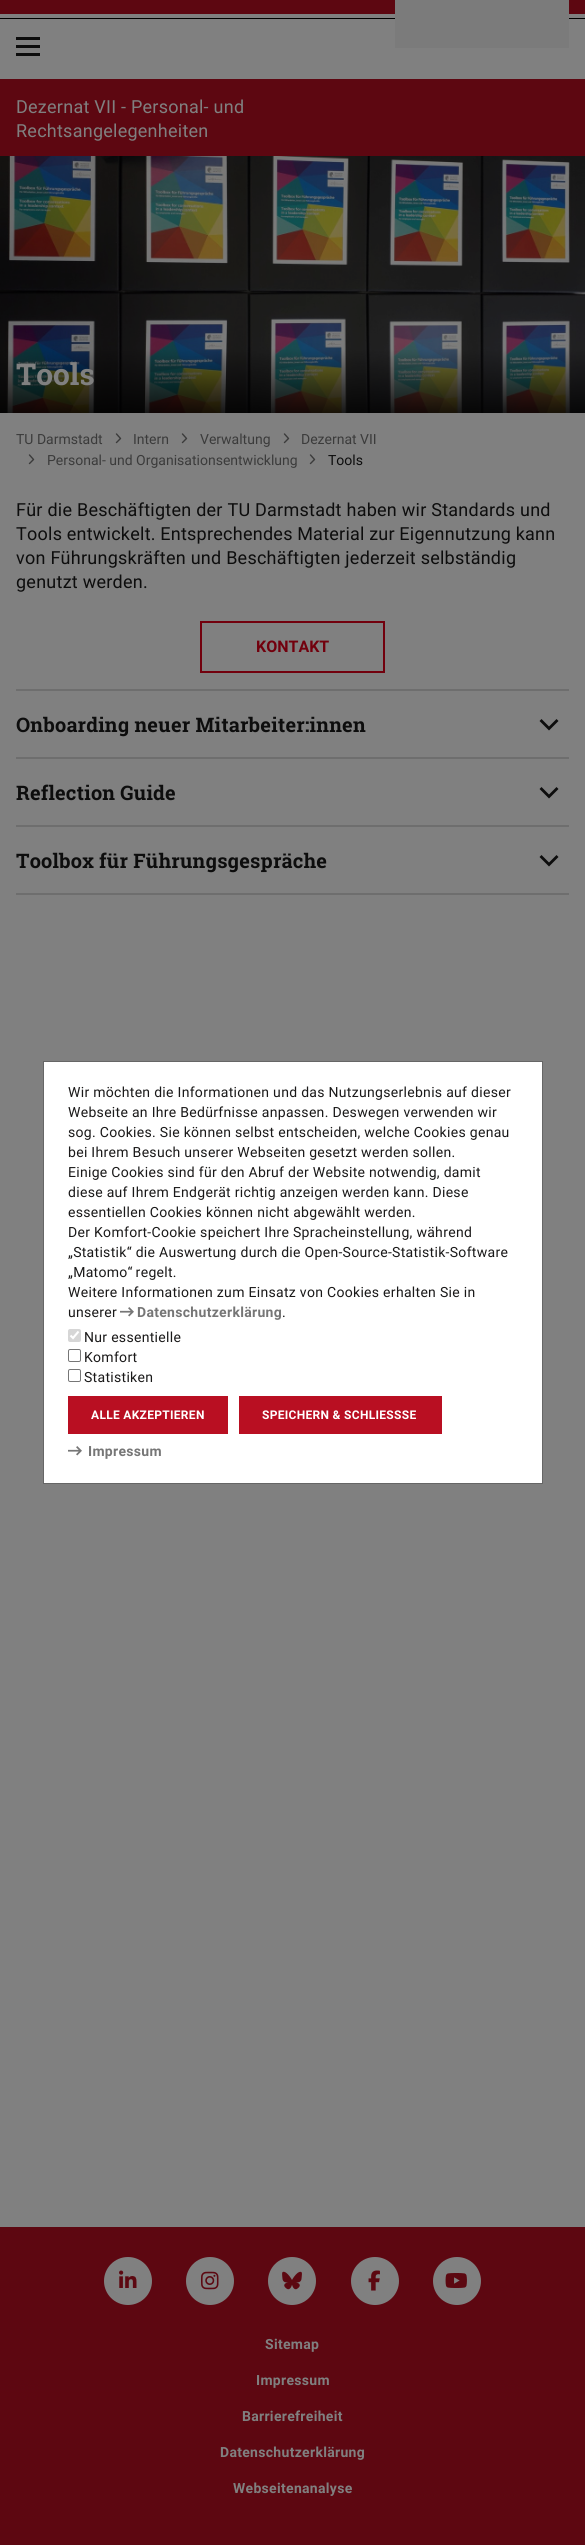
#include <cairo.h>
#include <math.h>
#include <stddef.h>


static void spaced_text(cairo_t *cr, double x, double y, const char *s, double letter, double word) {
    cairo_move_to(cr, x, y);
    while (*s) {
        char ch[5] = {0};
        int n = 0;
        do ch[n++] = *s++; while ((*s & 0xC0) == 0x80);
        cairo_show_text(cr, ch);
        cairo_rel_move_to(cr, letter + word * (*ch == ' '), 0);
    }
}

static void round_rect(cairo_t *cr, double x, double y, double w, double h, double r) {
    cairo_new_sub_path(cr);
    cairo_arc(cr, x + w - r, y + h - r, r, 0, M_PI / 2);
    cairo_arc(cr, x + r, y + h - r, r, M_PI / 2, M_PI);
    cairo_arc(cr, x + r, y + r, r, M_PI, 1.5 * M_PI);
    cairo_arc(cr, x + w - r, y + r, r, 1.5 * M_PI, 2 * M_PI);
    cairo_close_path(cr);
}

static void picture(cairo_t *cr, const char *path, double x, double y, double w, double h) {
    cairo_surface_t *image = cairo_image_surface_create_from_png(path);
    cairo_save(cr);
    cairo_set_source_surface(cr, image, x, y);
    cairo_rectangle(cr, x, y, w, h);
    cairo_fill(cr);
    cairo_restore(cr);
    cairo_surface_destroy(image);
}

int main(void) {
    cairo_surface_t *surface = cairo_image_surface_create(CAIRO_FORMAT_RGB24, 585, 2545);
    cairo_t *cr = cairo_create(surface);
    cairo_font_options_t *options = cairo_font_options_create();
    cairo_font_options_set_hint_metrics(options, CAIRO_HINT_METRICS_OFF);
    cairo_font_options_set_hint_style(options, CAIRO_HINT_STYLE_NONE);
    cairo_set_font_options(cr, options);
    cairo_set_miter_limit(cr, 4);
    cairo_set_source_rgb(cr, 0.502, 0.502, 0.502);
    cairo_paint(cr);
    cairo_set_source_rgb(cr, 0.365, 0.031, 0.067);
    cairo_rectangle(cr, 0, 0, 585, 14);
    cairo_fill(cr);
    cairo_set_source_rgb(cr, 0, 0, 0);
    cairo_rectangle(cr, 0, 18, 585, 1);
    cairo_fill(cr);
    cairo_set_source_rgb(cr, 0.051, 0.051, 0.051);
    cairo_rectangle(cr, 16, 45, 24, 3);
    cairo_fill(cr);
    cairo_rectangle(cr, 16, 37, 24, 3);
    cairo_fill(cr);
    cairo_rectangle(cr, 16, 53, 24, 3);
    cairo_fill(cr);
    cairo_set_source_rgb(cr, 0.482, 0.482, 0.482);
    cairo_rectangle(cr, 395, 0, 174, 48);
    cairo_fill(cr);
    cairo_set_source_rgb(cr, 0.365, 0.031, 0.067);
    cairo_rectangle(cr, 0, 79, 585, 77);
    cairo_fill(cr);
    cairo_select_font_face(cr, "Roboto", CAIRO_FONT_SLANT_NORMAL, CAIRO_FONT_WEIGHT_NORMAL);
    cairo_set_font_size(cr, 18);
    cairo_set_source_rgb(cr, 0.502, 0.502, 0.502);
    spaced_text(cr, 16, 113, "Dezernat VII - Personal- und", 0.25, 0);
    spaced_text(cr, 16, 137, "Rechtsangelegenheiten", 0.25, 0);
    picture(cr, "img1.png", 0, 156, 585, 257);
    cairo_select_font_face(cr, "Roboto Slab", CAIRO_FONT_SLANT_NORMAL, CAIRO_FONT_WEIGHT_BOLD);
    cairo_set_font_size(cr, 30);
    cairo_move_to(cr, 16, 385);
    cairo_show_text(cr, "Tools");
    cairo_select_font_face(cr, "Roboto", CAIRO_FONT_SLANT_NORMAL, CAIRO_FONT_WEIGHT_NORMAL);
    cairo_set_font_size(cr, 14);
    cairo_set_source_rgb(cr, 0.231, 0.231, 0.231);
    cairo_move_to(cr, 16, 444);
    cairo_show_text(cr, "TU Darmstadt");
    cairo_new_path(cr);
    cairo_move_to(cr, 116.5, 442.5);
    cairo_line_to(cr, 120.5, 438.5);
    cairo_line_to(cr, 116.5, 434);
    cairo_set_line_width(cr, 1.4);
    cairo_set_line_cap(cr, CAIRO_LINE_CAP_ROUND);
    cairo_set_line_join(cr, CAIRO_LINE_JOIN_ROUND);
    cairo_stroke(cr);
    cairo_move_to(cr, 133, 444);
    cairo_show_text(cr, "Intern");
    cairo_new_path(cr);
    cairo_move_to(cr, 182.5, 442.5);
    cairo_line_to(cr, 186.5, 438.5);
    cairo_line_to(cr, 182.5, 434);
    cairo_stroke(cr);
    cairo_move_to(cr, 200, 444);
    cairo_show_text(cr, "Verwaltung");
    cairo_new_path(cr);
    cairo_move_to(cr, 284.5, 442.5);
    cairo_line_to(cr, 288.5, 438.5);
    cairo_line_to(cr, 284.5, 434);
    cairo_stroke(cr);
    cairo_move_to(cr, 301, 444);
    cairo_show_text(cr, "Dezernat VII");
    cairo_new_path(cr);
    cairo_move_to(cr, 29.5, 463.5);
    cairo_line_to(cr, 33.5, 459.5);
    cairo_line_to(cr, 29.5, 455);
    cairo_stroke(cr);
    cairo_move_to(cr, 47, 465);
    cairo_show_text(cr, "Personal- und Organisationsentwicklung");
    cairo_new_path(cr);
    cairo_move_to(cr, 310.5, 463.5);
    cairo_line_to(cr, 314.5, 459.5);
    cairo_line_to(cr, 310.5, 455);
    cairo_stroke(cr);
    cairo_set_source_rgb(cr, 0.051, 0.051, 0.051);
    cairo_move_to(cr, 328, 465);
    cairo_show_text(cr, "Tools");
    cairo_set_font_size(cr, 18);
    spaced_text(cr, 16, 516, "Für die Beschäftigten der TU Darmstadt haben wir Standards und", 0.25, 0);
    spaced_text(cr, 16, 540, "Tools entwickelt. Entsprechendes Material zur Eigennutzung kann", 0.25, -0.25);
    spaced_text(cr, 16, 564, "von Führungskräften und Beschäftigten jederzeit selbständig", 0.25, 0);
    spaced_text(cr, 16, 588, "genutzt werden.", 0.25, 0);
    cairo_rectangle(cr, 201, 622, 183, 50);
    cairo_set_source_rgb(cr, 0.447, 0, 0.051);
    cairo_set_line_width(cr, 2);
    cairo_set_line_cap(cr, CAIRO_LINE_CAP_BUTT);
    cairo_set_line_join(cr, CAIRO_LINE_JOIN_MITER);
    cairo_stroke(cr);
    cairo_select_font_face(cr, "Roboto", CAIRO_FONT_SLANT_NORMAL, CAIRO_FONT_WEIGHT_BOLD);
    cairo_set_font_size(cr, 16);
    cairo_move_to(cr, 256, 652);
    cairo_show_text(cr, "KONTAKT");
    cairo_set_source_rgb(cr, 0.431, 0.431, 0.431);
    cairo_rectangle(cr, 16, 689, 553, 2);
    cairo_fill(cr);
    cairo_rectangle(cr, 16, 757, 553, 2);
    cairo_fill(cr);
    cairo_select_font_face(cr, "Roboto Slab", CAIRO_FONT_SLANT_NORMAL, CAIRO_FONT_WEIGHT_BOLD);
    cairo_set_font_size(cr, 20);
    cairo_set_source_rgb(cr, 0.051, 0.051, 0.051);
    spaced_text(cr, 16, 732, "Onboarding neuer Mitarbeiter:innen", 0.2, 0);
    cairo_new_path(cr);
    cairo_move_to(cr, 549, 730.5);
    cairo_line_to(cr, 558.5, 721);
    cairo_line_to(cr, 556.5, 719);
    cairo_line_to(cr, 549, 726.5);
    cairo_line_to(cr, 541.5, 719);
    cairo_line_to(cr, 539.5, 721);
    cairo_close_path(cr);
    cairo_fill(cr);
    cairo_set_source_rgb(cr, 0.431, 0.431, 0.431);
    cairo_rectangle(cr, 16, 825, 553, 2);
    cairo_fill(cr);
    cairo_set_source_rgb(cr, 0.051, 0.051, 0.051);
    spaced_text(cr, 16, 800, "Reflection Guide", 0.2, 0);
    cairo_new_path(cr);
    cairo_move_to(cr, 549, 798.5);
    cairo_line_to(cr, 558.5, 789);
    cairo_line_to(cr, 556.5, 787);
    cairo_line_to(cr, 549, 794.5);
    cairo_line_to(cr, 541.5, 787);
    cairo_line_to(cr, 539.5, 789);
    cairo_close_path(cr);
    cairo_fill(cr);
    cairo_set_source_rgb(cr, 0.431, 0.431, 0.431);
    cairo_rectangle(cr, 16, 893, 553, 2);
    cairo_fill(cr);
    cairo_set_source_rgb(cr, 0.051, 0.051, 0.051);
    spaced_text(cr, 16, 868, "Toolbox für Führungsgespräche", 0.2, 0);
    cairo_new_path(cr);
    cairo_move_to(cr, 549, 866.5);
    cairo_line_to(cr, 558.5, 857);
    cairo_line_to(cr, 556.5, 855);
    cairo_line_to(cr, 549, 862.5);
    cairo_line_to(cr, 541.5, 855);
    cairo_line_to(cr, 539.5, 857);
    cairo_close_path(cr);
    cairo_fill(cr);
    cairo_set_source_rgb(cr, 0.365, 0.031, 0.067);
    cairo_rectangle(cr, 0, 2227, 585, 318);
    cairo_fill(cr);
    cairo_set_source_rgb(cr, 0.502, 0.502, 0.502);
    cairo_arc(cr, 128, 2281, 24, 0, 2 * M_PI);
    cairo_fill(cr);
    picture(cr, "img2.png", 119, 2270, 18, 18);
    cairo_arc(cr, 210, 2281, 24, 0, 2 * M_PI);
    cairo_fill(cr);
    picture(cr, "img3.png", 201, 2271, 18, 19);
    cairo_arc(cr, 292, 2281, 24, 0, 2 * M_PI);
    cairo_fill(cr);
    picture(cr, "img4.png", 282, 2271, 20, 19);
    cairo_arc(cr, 375, 2281, 24, 0, 2 * M_PI);
    cairo_fill(cr);
    picture(cr, "img5.png", 368, 2270, 12, 21);
    cairo_arc(cr, 457, 2281, 24, 0, 2 * M_PI);
    cairo_fill(cr);
    picture(cr, "img6.png", 445, 2273, 22, 15);
    cairo_select_font_face(cr, "Roboto", CAIRO_FONT_SLANT_NORMAL, CAIRO_FONT_WEIGHT_BOLD);
    cairo_set_font_size(cr, 14);
    spaced_text(cr, 265, 2349, "Sitemap", 0.3, 0);
    spaced_text(cr, 256, 2385, "Impressum", 0.3, 0);
    spaced_text(cr, 242, 2421, "Barrierefreiheit", 0.3, 0);
    spaced_text(cr, 220, 2457, "Datenschutzerklärung", 0.3, 0);
    spaced_text(cr, 233, 2493, "Webseitenanalyse", 0.3, 0);
    cairo_set_source_rgb(cr, 1, 1, 1);
    cairo_rectangle(cr, 43.5, 1061.5, 499, 422);
    cairo_fill_preserve(cr);
    cairo_set_source_rgb(cr, 0.4, 0.4, 0.4);
    cairo_set_line_width(cr, 1);
    cairo_stroke(cr);
    cairo_select_font_face(cr, "Roboto", CAIRO_FONT_SLANT_NORMAL, CAIRO_FONT_WEIGHT_NORMAL);
    cairo_set_source_rgb(cr, 0.102, 0.098, 0.098);
    spaced_text(cr, 68, 1097, "Wir möchten die Informationen und das Nutzungserlebnis auf dieser", 0.3, 0);
    spaced_text(cr, 68, 1117, "Webseite an Ihre Bedürfnisse anpassen. Deswegen verwenden wir", 0.3, 0);
    spaced_text(cr, 68, 1137, "sog. Cookies. Sie können selbst entscheiden, welche Cookies genau", 0.3, 0);
    spaced_text(cr, 68, 1157, "bei Ihrem Besuch unserer Webseiten gesetzt werden sollen.", 0.3, 0);
    spaced_text(cr, 68, 1177, "Einige Cookies sind für den Abruf der Website notwendig, damit", 0.3, 0);
    spaced_text(cr, 68, 1197, "diese auf Ihrem Endgerät richtig anzeigen werden kann. Diese", 0.3, 0);
    spaced_text(cr, 68, 1217, "essentiellen Cookies können nicht abgewählt werden.", 0.3, 0);
    spaced_text(cr, 68, 1237, "Der Komfort-Cookie speichert Ihre Spracheinstellung, während", 0.3, 0);
    spaced_text(cr, 68, 1257, "„Statistik“ die Auswertung durch die Open-Source-Statistik-Software", 0.3, 0);
    spaced_text(cr, 68, 1277, "„Matomo“ regelt.", 0.3, -1);
    spaced_text(cr, 68, 1297, "Weitere Informationen zum Einsatz von Cookies erhalten Sie in", 0.3, 0);
    spaced_text(cr, 68, 1317, "unserer", 0.3, 0);
    picture(cr, "img7.png", 120, 1307, 14, 10);
    cairo_select_font_face(cr, "Roboto", CAIRO_FONT_SLANT_NORMAL, CAIRO_FONT_WEIGHT_BOLD);
    cairo_set_source_rgb(cr, 0.463, 0.463, 0.463);
    spaced_text(cr, 137, 1317, "Datenschutzerklärung", 0.3, 0);
    cairo_select_font_face(cr, "Roboto", CAIRO_FONT_SLANT_NORMAL, CAIRO_FONT_WEIGHT_NORMAL);
    cairo_set_source_rgb(cr, 0.102, 0.098, 0.098);
    spaced_text(cr, 282, 1317, ".", 0.3, 0);
    cairo_set_source_rgb(cr, 0.839, 0.839, 0.839);
    round_rect(cr, 68, 1329, 13, 13, 2);
    cairo_fill(cr);
    cairo_new_path(cr);
    cairo_move_to(cr, 70.5, 1335.5);
    cairo_line_to(cr, 73, 1338);
    cairo_line_to(cr, 78.5, 1331.5);
    cairo_set_source_rgb(cr, 1, 1, 1);
    cairo_set_line_width(cr, 2.1);
    cairo_stroke(cr);
    cairo_set_source_rgb(cr, 0.102, 0.098, 0.098);
    spaced_text(cr, 84, 1342, "Nur essentielle", 0.3, 0);
    round_rect(cr, 68.5, 1349.5, 12, 12, 1.5);
    cairo_set_source_rgb(cr, 0.463, 0.463, 0.463);
    cairo_set_line_width(cr, 1);
    cairo_stroke(cr);
    cairo_set_source_rgb(cr, 0.102, 0.098, 0.098);
    spaced_text(cr, 84, 1362, "Komfort", 0.3, 0);
    round_rect(cr, 68.5, 1369.5, 12, 12, 1.5);
    cairo_set_source_rgb(cr, 0.463, 0.463, 0.463);
    cairo_stroke(cr);
    cairo_set_source_rgb(cr, 0.102, 0.098, 0.098);
    spaced_text(cr, 84, 1382, "Statistiken", 0.3, 0);
    cairo_set_source_rgb(cr, 0.725, 0.059, 0.133);
    cairo_rectangle(cr, 68, 1396, 160, 38);
    cairo_fill(cr);
    cairo_select_font_face(cr, "Roboto", CAIRO_FONT_SLANT_NORMAL, CAIRO_FONT_WEIGHT_BOLD);
    cairo_set_font_size(cr, 12);
    cairo_set_source_rgb(cr, 1, 1, 1);
    spaced_text(cr, 91, 1419, "ALLE AKZEPTIEREN", 0.3, 0);
    cairo_set_source_rgb(cr, 0.725, 0.059, 0.133);
    cairo_rectangle(cr, 239, 1396, 203, 38);
    cairo_fill(cr);
    cairo_set_source_rgb(cr, 1, 1, 1);
    spaced_text(cr, 262, 1419, "SPEICHERN & SCHLIESSSE", 0.3, 0);
    picture(cr, "img7.png", 68, 1446, 14, 10);
    cairo_set_font_size(cr, 14);
    cairo_set_source_rgb(cr, 0.463, 0.463, 0.463);
    spaced_text(cr, 88, 1456, "Impressum", 0.3, 0);
    cairo_surface_write_to_png(surface, "page.png");
    cairo_font_options_destroy(options);
    cairo_destroy(cr);
    cairo_surface_destroy(surface);
    return 0;
}
